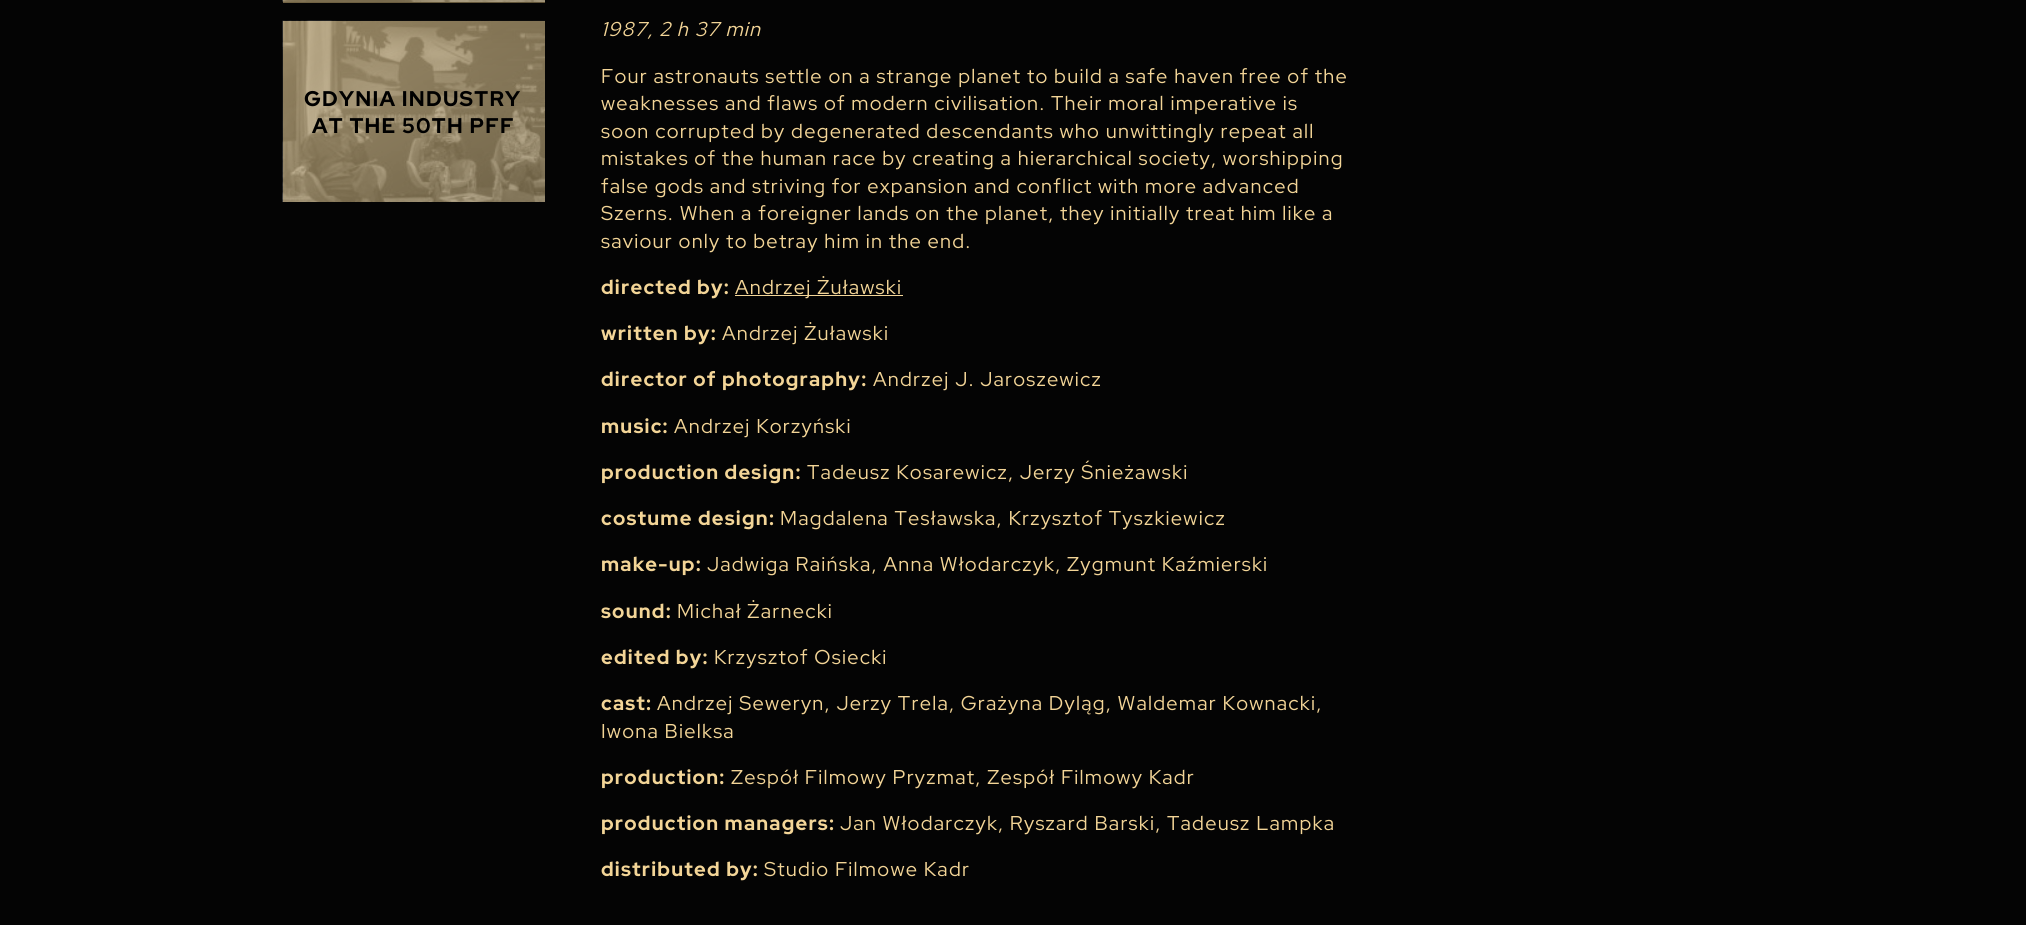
#include <cairo.h>
#include <math.h>
#include <stddef.h>


static void spaced_text(cairo_t *cr, double x, double y, const char *s, double letter, double word) {
    cairo_move_to(cr, x, y);
    while (*s) {
        char ch[5] = {0};
        int n = 0;
        do ch[n++] = *s++; while ((*s & 0xC0) == 0x80);
        cairo_show_text(cr, ch);
        cairo_rel_move_to(cr, letter + word * (*ch == ' '), 0);
    }
}

static void picture(cairo_t *cr, const char *path, double x, double y, double w, double h) {
    cairo_surface_t *image = cairo_image_surface_create_from_png(path);
    cairo_save(cr);
    cairo_set_source_surface(cr, image, x, y);
    cairo_rectangle(cr, x, y, w, h);
    cairo_fill(cr);
    cairo_restore(cr);
    cairo_surface_destroy(image);
}

int main(void) {
    cairo_surface_t *surface = cairo_image_surface_create(CAIRO_FORMAT_RGB24, 2026, 925);
    cairo_t *cr = cairo_create(surface);
    cairo_font_options_t *options = cairo_font_options_create();
    cairo_font_options_set_hint_metrics(options, CAIRO_HINT_METRICS_OFF);
    cairo_font_options_set_hint_style(options, CAIRO_HINT_STYLE_NONE);
    cairo_set_font_options(cr, options);
    cairo_set_miter_limit(cr, 4);
    cairo_pattern_t *gradient;
    cairo_set_source_rgb(cr, 0.016, 0.016, 0.016);
    cairo_paint(cr);
    picture(cr, "img1.png", 282, 0, 263, 2);
    gradient = cairo_pattern_create_linear(486, 37, 342, -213);
    cairo_pattern_add_color_stop_rgba(gradient, 0, 0.667, 0.576, 0.38, 0.55);
    cairo_pattern_add_color_stop_rgba(gradient, 1, 0.953, 0.835, 0.592, 0.55);
    cairo_set_source(cr, gradient);
    cairo_pattern_destroy(gradient);
    cairo_rectangle(cr, 283, 0, 262, 3);
    cairo_fill(cr);
    picture(cr, "img2.png", 282, 20, 263, 182);
    cairo_select_font_face(cr, "Red Hat Display", CAIRO_FONT_SLANT_NORMAL, CAIRO_FONT_WEIGHT_BOLD);
    cairo_set_font_size(cr, 21.25);
    cairo_set_source_rgb(cr, 0, 0, 0);
    spaced_text(cr, 304, 106, "GDYNIA INDUSTRY", 1.25, 0);
    spaced_text(cr, 312, 133, "AT THE 50TH PFF", 1.25, 0);
    cairo_select_font_face(cr, "Red Hat Display", CAIRO_FONT_SLANT_ITALIC, CAIRO_FONT_WEIGHT_NORMAL);
    cairo_set_font_size(cr, 20);
    cairo_set_source_rgb(cr, 0.953, 0.835, 0.592);
    spaced_text(cr, 601, 36, "1987, 2 h 37 min", 1.25, 0);
    cairo_select_font_face(cr, "Red Hat Display", CAIRO_FONT_SLANT_NORMAL, CAIRO_FONT_WEIGHT_NORMAL);
    spaced_text(cr, 601, 83, "Four astronauts settle on a strange planet to build a safe haven free of the", 1.25, 0);
    spaced_text(cr, 601, 110, "weaknesses and flaws of modern civilisation. Their moral imperative is", 1.25, 0);
    spaced_text(cr, 601, 138, "soon corrupted by degenerated descendants who unwittingly repeat all", 1.25, 0);
    spaced_text(cr, 601, 165, "mistakes of the human race by creating a hierarchical society, worshipping", 1.25, 0);
    spaced_text(cr, 601, 193, "false gods and striving for expansion and conflict with more advanced", 1.25, 0);
    spaced_text(cr, 601, 220, "Szerns. When a foreigner lands on the planet, they initially treat him like a", 1.25, 0);
    spaced_text(cr, 601, 248, "saviour only to betray him in the end.", 1.25, 0);
    cairo_select_font_face(cr, "Red Hat Display", CAIRO_FONT_SLANT_NORMAL, CAIRO_FONT_WEIGHT_BOLD);
    spaced_text(cr, 601, 294, "directed by:", 1.25, 0);
    cairo_rectangle(cr, 735, 295, 168, 1);
    cairo_fill(cr);
    cairo_select_font_face(cr, "Red Hat Display", CAIRO_FONT_SLANT_NORMAL, CAIRO_FONT_WEIGHT_NORMAL);
    spaced_text(cr, 735, 294, "Andrzej Żuławski", 1.25, 0);
    cairo_select_font_face(cr, "Red Hat Display", CAIRO_FONT_SLANT_NORMAL, CAIRO_FONT_WEIGHT_BOLD);
    spaced_text(cr, 601, 340, "written by:", 1.25, 0);
    cairo_select_font_face(cr, "Red Hat Display", CAIRO_FONT_SLANT_NORMAL, CAIRO_FONT_WEIGHT_NORMAL);
    spaced_text(cr, 722, 340, "Andrzej Żuławski", 1.25, 0);
    cairo_select_font_face(cr, "Red Hat Display", CAIRO_FONT_SLANT_NORMAL, CAIRO_FONT_WEIGHT_BOLD);
    spaced_text(cr, 601, 386, "director of photography:", 1.25, 0);
    cairo_select_font_face(cr, "Red Hat Display", CAIRO_FONT_SLANT_NORMAL, CAIRO_FONT_WEIGHT_NORMAL);
    spaced_text(cr, 873, 386, "Andrzej J. Jaroszewicz", 1.25, 0);
    cairo_select_font_face(cr, "Red Hat Display", CAIRO_FONT_SLANT_NORMAL, CAIRO_FONT_WEIGHT_BOLD);
    spaced_text(cr, 601, 433, "music:", 1.25, 0);
    cairo_select_font_face(cr, "Red Hat Display", CAIRO_FONT_SLANT_NORMAL, CAIRO_FONT_WEIGHT_NORMAL);
    spaced_text(cr, 674, 433, "Andrzej Korzyński", 1.25, 0);
    cairo_select_font_face(cr, "Red Hat Display", CAIRO_FONT_SLANT_NORMAL, CAIRO_FONT_WEIGHT_BOLD);
    spaced_text(cr, 601, 479, "production design:", 1.25, 0);
    cairo_select_font_face(cr, "Red Hat Display", CAIRO_FONT_SLANT_NORMAL, CAIRO_FONT_WEIGHT_NORMAL);
    spaced_text(cr, 807, 479, "Tadeusz Kosarewicz, Jerzy Śnieżawski", 1.25, 0);
    cairo_select_font_face(cr, "Red Hat Display", CAIRO_FONT_SLANT_NORMAL, CAIRO_FONT_WEIGHT_BOLD);
    spaced_text(cr, 601, 525, "costume design:", 1.25, 0);
    cairo_select_font_face(cr, "Red Hat Display", CAIRO_FONT_SLANT_NORMAL, CAIRO_FONT_WEIGHT_NORMAL);
    spaced_text(cr, 780, 525, "Magdalena Tesławska, Krzysztof Tyszkiewicz", 1.25, 0);
    cairo_select_font_face(cr, "Red Hat Display", CAIRO_FONT_SLANT_NORMAL, CAIRO_FONT_WEIGHT_BOLD);
    spaced_text(cr, 601, 571, "make-up:", 1.25, 0);
    cairo_select_font_face(cr, "Red Hat Display", CAIRO_FONT_SLANT_NORMAL, CAIRO_FONT_WEIGHT_NORMAL);
    spaced_text(cr, 707, 571, "Jadwiga Raińska, Anna Włodarczyk, Zygmunt Kaźmierski", 1.25, 0);
    cairo_select_font_face(cr, "Red Hat Display", CAIRO_FONT_SLANT_NORMAL, CAIRO_FONT_WEIGHT_BOLD);
    spaced_text(cr, 601, 618, "sound:", 1.25, 0);
    cairo_select_font_face(cr, "Red Hat Display", CAIRO_FONT_SLANT_NORMAL, CAIRO_FONT_WEIGHT_NORMAL);
    spaced_text(cr, 677, 618, "Michał Żarnecki", 1.25, 0);
    cairo_select_font_face(cr, "Red Hat Display", CAIRO_FONT_SLANT_NORMAL, CAIRO_FONT_WEIGHT_BOLD);
    spaced_text(cr, 601, 664, "edited by:", 1.25, 0);
    cairo_select_font_face(cr, "Red Hat Display", CAIRO_FONT_SLANT_NORMAL, CAIRO_FONT_WEIGHT_NORMAL);
    spaced_text(cr, 714, 664, "Krzysztof Osiecki", 1.25, 0);
    cairo_select_font_face(cr, "Red Hat Display", CAIRO_FONT_SLANT_NORMAL, CAIRO_FONT_WEIGHT_BOLD);
    spaced_text(cr, 601, 710, "cast:", 1.25, 0);
    cairo_select_font_face(cr, "Red Hat Display", CAIRO_FONT_SLANT_NORMAL, CAIRO_FONT_WEIGHT_NORMAL);
    spaced_text(cr, 657, 710, "Andrzej Seweryn, Jerzy Trela, Grażyna Dyląg, Waldemar Kownacki,", 1.25, 0);
    spaced_text(cr, 601, 738, "Iwona Bielksa", 1.25, 0);
    cairo_select_font_face(cr, "Red Hat Display", CAIRO_FONT_SLANT_NORMAL, CAIRO_FONT_WEIGHT_BOLD);
    spaced_text(cr, 601, 784, "production:", 1.25, 0);
    cairo_select_font_face(cr, "Red Hat Display", CAIRO_FONT_SLANT_NORMAL, CAIRO_FONT_WEIGHT_NORMAL);
    spaced_text(cr, 731, 784, "Zespół Filmowy Pryzmat, Zespół Filmowy Kadr", 1.25, 0);
    cairo_select_font_face(cr, "Red Hat Display", CAIRO_FONT_SLANT_NORMAL, CAIRO_FONT_WEIGHT_BOLD);
    spaced_text(cr, 601, 830, "production managers:", 1.25, 0);
    cairo_select_font_face(cr, "Red Hat Display", CAIRO_FONT_SLANT_NORMAL, CAIRO_FONT_WEIGHT_NORMAL);
    spaced_text(cr, 840, 830, "Jan Włodarczyk, Ryszard Barski, Tadeusz Lampka", 1.25, 0);
    cairo_select_font_face(cr, "Red Hat Display", CAIRO_FONT_SLANT_NORMAL, CAIRO_FONT_WEIGHT_BOLD);
    spaced_text(cr, 601, 876, "distributed by:", 1.25, 0);
    cairo_select_font_face(cr, "Red Hat Display", CAIRO_FONT_SLANT_NORMAL, CAIRO_FONT_WEIGHT_NORMAL);
    spaced_text(cr, 764, 876, "Studio Filmowe Kadr", 1.25, 0);
    cairo_surface_write_to_png(surface, "page.png");
    cairo_font_options_destroy(options);
    cairo_destroy(cr);
    cairo_surface_destroy(surface);
    return 0;
}
